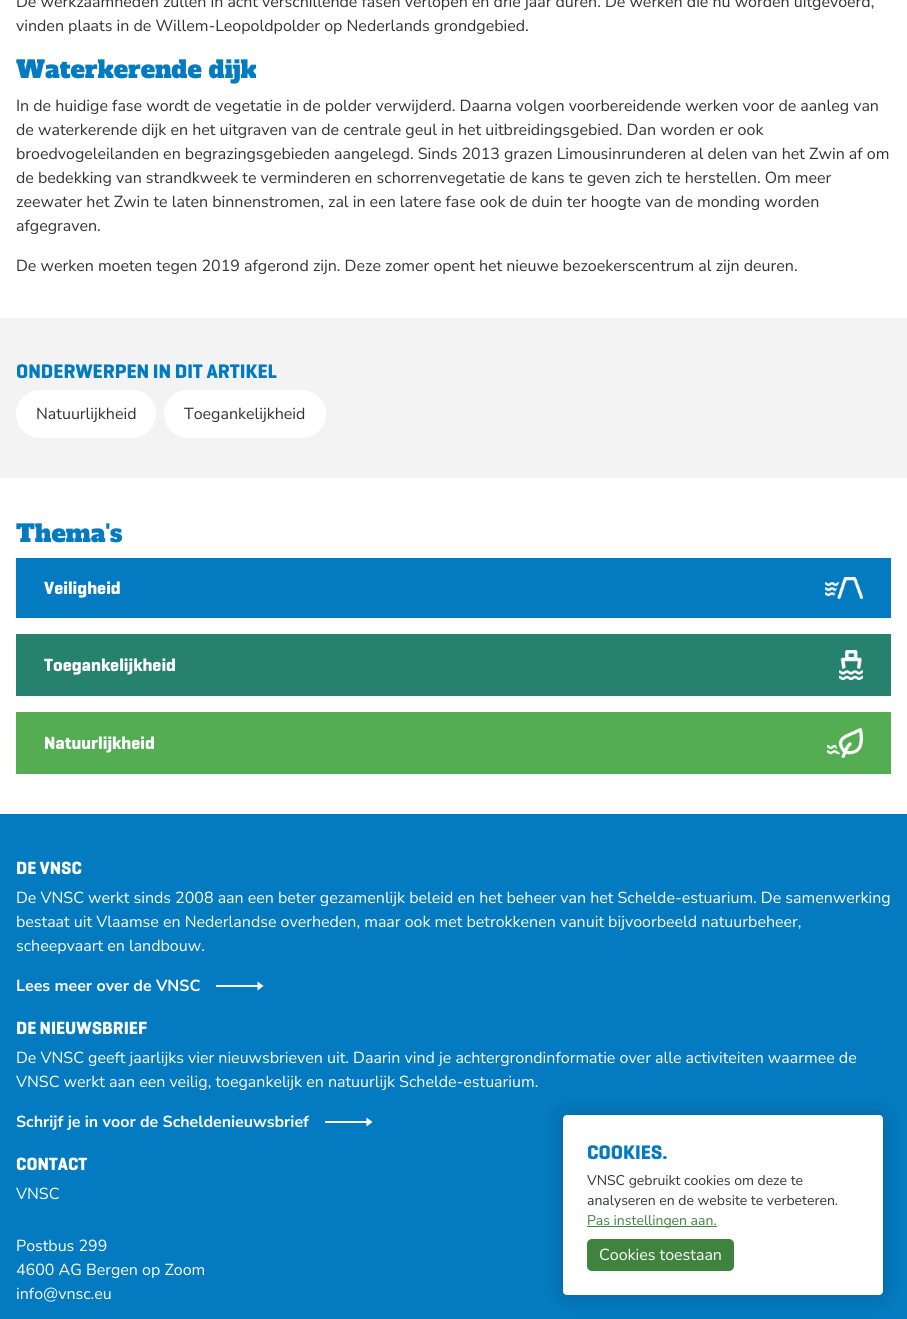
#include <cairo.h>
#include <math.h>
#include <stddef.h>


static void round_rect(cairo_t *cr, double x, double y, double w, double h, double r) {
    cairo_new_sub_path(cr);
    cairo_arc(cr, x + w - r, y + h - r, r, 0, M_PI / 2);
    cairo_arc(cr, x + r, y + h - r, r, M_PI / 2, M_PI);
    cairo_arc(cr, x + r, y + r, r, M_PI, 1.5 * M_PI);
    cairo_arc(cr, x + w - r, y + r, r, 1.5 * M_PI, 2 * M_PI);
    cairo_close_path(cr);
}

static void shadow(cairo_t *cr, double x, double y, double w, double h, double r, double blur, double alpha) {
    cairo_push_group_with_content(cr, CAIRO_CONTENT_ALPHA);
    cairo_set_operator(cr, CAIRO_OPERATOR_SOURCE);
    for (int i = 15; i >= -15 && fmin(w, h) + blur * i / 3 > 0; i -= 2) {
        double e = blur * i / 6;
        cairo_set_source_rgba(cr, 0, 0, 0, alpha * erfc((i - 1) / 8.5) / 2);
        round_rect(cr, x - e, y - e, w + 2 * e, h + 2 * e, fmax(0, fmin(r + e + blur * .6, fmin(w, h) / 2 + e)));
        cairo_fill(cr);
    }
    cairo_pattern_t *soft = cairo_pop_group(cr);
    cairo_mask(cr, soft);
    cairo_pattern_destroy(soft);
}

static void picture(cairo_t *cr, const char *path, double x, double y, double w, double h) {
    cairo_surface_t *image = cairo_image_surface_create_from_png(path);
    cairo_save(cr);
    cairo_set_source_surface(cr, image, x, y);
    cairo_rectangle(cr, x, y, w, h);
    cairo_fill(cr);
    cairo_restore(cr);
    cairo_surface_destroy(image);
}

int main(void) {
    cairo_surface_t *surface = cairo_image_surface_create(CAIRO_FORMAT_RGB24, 907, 1319);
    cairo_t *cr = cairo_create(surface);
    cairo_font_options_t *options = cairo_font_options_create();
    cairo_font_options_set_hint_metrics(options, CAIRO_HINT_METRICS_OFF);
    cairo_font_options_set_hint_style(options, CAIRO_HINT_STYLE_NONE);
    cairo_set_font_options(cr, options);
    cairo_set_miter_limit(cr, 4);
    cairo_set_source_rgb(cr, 1, 1, 1);
    cairo_paint(cr);
    cairo_select_font_face(cr, "Nunito Sans", CAIRO_FONT_SLANT_NORMAL, CAIRO_FONT_WEIGHT_NORMAL);
    cairo_set_font_size(cr, 16);
    cairo_set_source_rgb(cr, 0.2, 0.2, 0.2);
    cairo_move_to(cr, 16, 7);
    cairo_show_text(cr, "De werkzaamheden zullen in acht verschillende fasen verlopen en drie jaar duren. De werken die nu worden uitgevoerd,");
    cairo_move_to(cr, 16, 31);
    cairo_show_text(cr, "vinden plaats in de Willem-Leopoldpolder op Nederlands grondgebied.");
    cairo_select_font_face(cr, "Alfa Slab One", CAIRO_FONT_SLANT_NORMAL, CAIRO_FONT_WEIGHT_NORMAL);
    cairo_set_font_size(cr, 24);
    cairo_set_source_rgb(cr, 0.016, 0.482, 0.757);
    cairo_move_to(cr, 16, 78);
    cairo_show_text(cr, "Waterkerende dijk");
    cairo_select_font_face(cr, "Nunito Sans", CAIRO_FONT_SLANT_NORMAL, CAIRO_FONT_WEIGHT_NORMAL);
    cairo_set_font_size(cr, 16);
    cairo_set_source_rgb(cr, 0.2, 0.2, 0.2);
    cairo_move_to(cr, 16, 111);
    cairo_show_text(cr, "In de huidige fase wordt de vegetatie in de polder verwijderd. Daarna volgen voorbereidende werken voor de aanleg van");
    cairo_move_to(cr, 16, 135);
    cairo_show_text(cr, "de waterkerende dijk en het uitgraven van de centrale geul in het uitbreidingsgebied. Dan worden er ook");
    cairo_move_to(cr, 16, 159);
    cairo_show_text(cr, "broedvogeleilanden en begrazingsgebieden aangelegd. Sinds 2013 grazen Limousinrunderen al delen van het Zwin af om");
    cairo_move_to(cr, 16, 183);
    cairo_show_text(cr, "de bedekking van strandkweek te verminderen en schorrenvegetatie de kans te geven zich te herstellen. Om meer");
    cairo_move_to(cr, 16, 207);
    cairo_show_text(cr, "zeewater het Zwin te laten binnenstromen, zal in een latere fase ook de duin ter hoogte van de monding worden");
    cairo_move_to(cr, 16, 231);
    cairo_show_text(cr, "afgegraven.");
    cairo_move_to(cr, 16, 271);
    cairo_show_text(cr, "De werken moeten tegen 2019 afgerond zijn. Deze zomer opent het nieuwe bezoekerscentrum al zijn deuren.");
    cairo_set_source_rgb(cr, 0.953, 0.953, 0.953);
    cairo_rectangle(cr, 0, 318, 907, 160);
    cairo_fill(cr);
    cairo_select_font_face(cr, "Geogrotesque", CAIRO_FONT_SLANT_NORMAL, CAIRO_FONT_WEIGHT_BOLD);
    cairo_set_font_size(cr, 20);
    cairo_set_source_rgb(cr, 0.016, 0.482, 0.757);
    cairo_move_to(cr, 16, 378);
    cairo_show_text(cr, "ONDERWERPEN IN DIT ARTIKEL");
    cairo_set_source_rgb(cr, 1, 1, 1);
    round_rect(cr, 16, 390, 140, 48, 24);
    cairo_fill(cr);
    cairo_select_font_face(cr, "Nunito Sans", CAIRO_FONT_SLANT_NORMAL, CAIRO_FONT_WEIGHT_NORMAL);
    cairo_set_font_size(cr, 16);
    cairo_set_source_rgb(cr, 0.2, 0.2, 0.2);
    cairo_move_to(cr, 36, 419);
    cairo_show_text(cr, "Natuurlijkheid");
    cairo_set_source_rgb(cr, 1, 1, 1);
    round_rect(cr, 164, 390, 162, 48, 24);
    cairo_fill(cr);
    cairo_set_source_rgb(cr, 0.2, 0.2, 0.2);
    cairo_move_to(cr, 184, 419);
    cairo_show_text(cr, "Toegankelijkheid");
    cairo_select_font_face(cr, "Alfa Slab One", CAIRO_FONT_SLANT_NORMAL, CAIRO_FONT_WEIGHT_NORMAL);
    cairo_set_font_size(cr, 24);
    cairo_set_source_rgb(cr, 0.016, 0.482, 0.757);
    cairo_move_to(cr, 16, 542);
    cairo_show_text(cr, "Thema's");
    cairo_rectangle(cr, 16, 558, 875, 60);
    cairo_fill(cr);
    cairo_select_font_face(cr, "Geogrotesque", CAIRO_FONT_SLANT_NORMAL, CAIRO_FONT_WEIGHT_BOLD);
    cairo_set_font_size(cr, 18);
    cairo_set_source_rgb(cr, 1, 1, 1);
    cairo_move_to(cr, 44, 594);
    cairo_show_text(cr, "Veiligheid");
    picture(cr, "img1.png", 825, 577, 38, 22);
    cairo_set_source_rgb(cr, 0.149, 0.506, 0.431);
    cairo_rectangle(cr, 16, 634, 875, 62);
    cairo_fill(cr);
    cairo_set_source_rgb(cr, 1, 1, 1);
    cairo_move_to(cr, 44, 671);
    cairo_show_text(cr, "Toegankelijkheid");
    picture(cr, "img2.png", 839, 650, 24, 30);
    cairo_set_source_rgb(cr, 0.329, 0.678, 0.322);
    cairo_rectangle(cr, 16, 712, 875, 62);
    cairo_fill(cr);
    cairo_set_source_rgb(cr, 1, 1, 1);
    cairo_move_to(cr, 44, 749);
    cairo_show_text(cr, "Natuurlijkheid");
    picture(cr, "img3.png", 827, 728, 36, 30);
    cairo_set_source_rgb(cr, 0.016, 0.482, 0.757);
    cairo_rectangle(cr, 0, 814, 907, 505);
    cairo_fill(cr);
    cairo_set_source_rgb(cr, 1, 1, 1);
    cairo_move_to(cr, 16, 874);
    cairo_show_text(cr, "DE VNSC");
    cairo_select_font_face(cr, "Nunito Sans", CAIRO_FONT_SLANT_NORMAL, CAIRO_FONT_WEIGHT_NORMAL);
    cairo_set_font_size(cr, 16);
    cairo_move_to(cr, 16, 903);
    cairo_show_text(cr, "De VNSC werkt sinds 2008 aan een beter gezamenlijk beleid en het beheer van het Schelde-estuarium. De samenwerking");
    cairo_move_to(cr, 16, 927);
    cairo_show_text(cr, "bestaat uit Vlaamse en Nederlandse overheden, maar ook met betrokkenen vanuit bijvoorbeeld natuurbeheer,");
    cairo_move_to(cr, 16, 951);
    cairo_show_text(cr, "scheepvaart en landbouw.");
    cairo_select_font_face(cr, "Nunito Sans", CAIRO_FONT_SLANT_NORMAL, CAIRO_FONT_WEIGHT_BOLD);
    cairo_move_to(cr, 16, 991);
    cairo_show_text(cr, "Lees meer over de VNSC");
    picture(cr, "img4.png", 216, 981, 48, 10);
    cairo_select_font_face(cr, "Geogrotesque", CAIRO_FONT_SLANT_NORMAL, CAIRO_FONT_WEIGHT_BOLD);
    cairo_set_font_size(cr, 18);
    cairo_move_to(cr, 16, 1034);
    cairo_show_text(cr, "DE NIEUWSBRIEF");
    cairo_select_font_face(cr, "Nunito Sans", CAIRO_FONT_SLANT_NORMAL, CAIRO_FONT_WEIGHT_NORMAL);
    cairo_set_font_size(cr, 16);
    cairo_move_to(cr, 16, 1063);
    cairo_show_text(cr, "De VNSC geeft jaarlijks vier nieuwsbrieven uit. Daarin vind je achtergrondinformatie over alle activiteiten waarmee de");
    cairo_move_to(cr, 16, 1087);
    cairo_show_text(cr, "VNSC werkt aan een veilig, toegankelijk en natuurlijk Schelde-estuarium.");
    cairo_select_font_face(cr, "Nunito Sans", CAIRO_FONT_SLANT_NORMAL, CAIRO_FONT_WEIGHT_BOLD);
    cairo_move_to(cr, 16, 1127);
    cairo_show_text(cr, "Schrijf je in voor de Scheldenieuwsbrief");
    picture(cr, "img5.png", 325, 1117, 48, 10);
    cairo_select_font_face(cr, "Geogrotesque", CAIRO_FONT_SLANT_NORMAL, CAIRO_FONT_WEIGHT_BOLD);
    cairo_set_font_size(cr, 18);
    cairo_move_to(cr, 16, 1170);
    cairo_show_text(cr, "CONTACT");
    cairo_select_font_face(cr, "Nunito Sans", CAIRO_FONT_SLANT_NORMAL, CAIRO_FONT_WEIGHT_NORMAL);
    cairo_set_font_size(cr, 16);
    cairo_move_to(cr, 16, 1199);
    cairo_show_text(cr, "VNSC");
    cairo_move_to(cr, 16, 1251);
    cairo_show_text(cr, "Postbus 299");
    cairo_move_to(cr, 16, 1275);
    cairo_show_text(cr, "4600 AG Bergen op Zoom");
    cairo_move_to(cr, 16, 1299);
    cairo_show_text(cr, "info@vnsc.eu");
    cairo_set_source_rgb(cr, 0, 0, 0);
    shadow(cr, 563, 1115, 320, 180, 4, 12, 0.2);
    cairo_set_source_rgb(cr, 1, 1, 1);
    round_rect(cr, 563, 1115, 320, 180, 4);
    cairo_fill(cr);
    cairo_select_font_face(cr, "Geogrotesque", CAIRO_FONT_SLANT_NORMAL, CAIRO_FONT_WEIGHT_BOLD);
    cairo_set_font_size(cr, 20);
    cairo_set_source_rgb(cr, 0.016, 0.482, 0.757);
    cairo_move_to(cr, 587, 1159);
    cairo_show_text(cr, "COOKIES.");
    cairo_select_font_face(cr, "Nunito Sans", CAIRO_FONT_SLANT_NORMAL, CAIRO_FONT_WEIGHT_NORMAL);
    cairo_set_font_size(cr, 14);
    cairo_set_source_rgb(cr, 0.2, 0.2, 0.2);
    cairo_move_to(cr, 587, 1185);
    cairo_show_text(cr, "VNSC gebruikt cookies om deze te");
    cairo_move_to(cr, 587, 1205);
    cairo_show_text(cr, "analyseren en de website te verbeteren.");
    cairo_set_source_rgb(cr, 0.251, 0.514, 0.243);
    cairo_rectangle(cr, 587, 1226, 130, 1);
    cairo_fill(cr);
    cairo_move_to(cr, 587, 1225);
    cairo_show_text(cr, "Pas instellingen aan.");
    round_rect(cr, 587, 1239, 147, 32, 5);
    cairo_fill(cr);
    cairo_set_font_size(cr, 16);
    cairo_set_source_rgb(cr, 1, 1, 1);
    cairo_move_to(cr, 599, 1260);
    cairo_show_text(cr, "Cookies toestaan");
    cairo_surface_write_to_png(surface, "page.png");
    cairo_font_options_destroy(options);
    cairo_destroy(cr);
    cairo_surface_destroy(surface);
    return 0;
}
